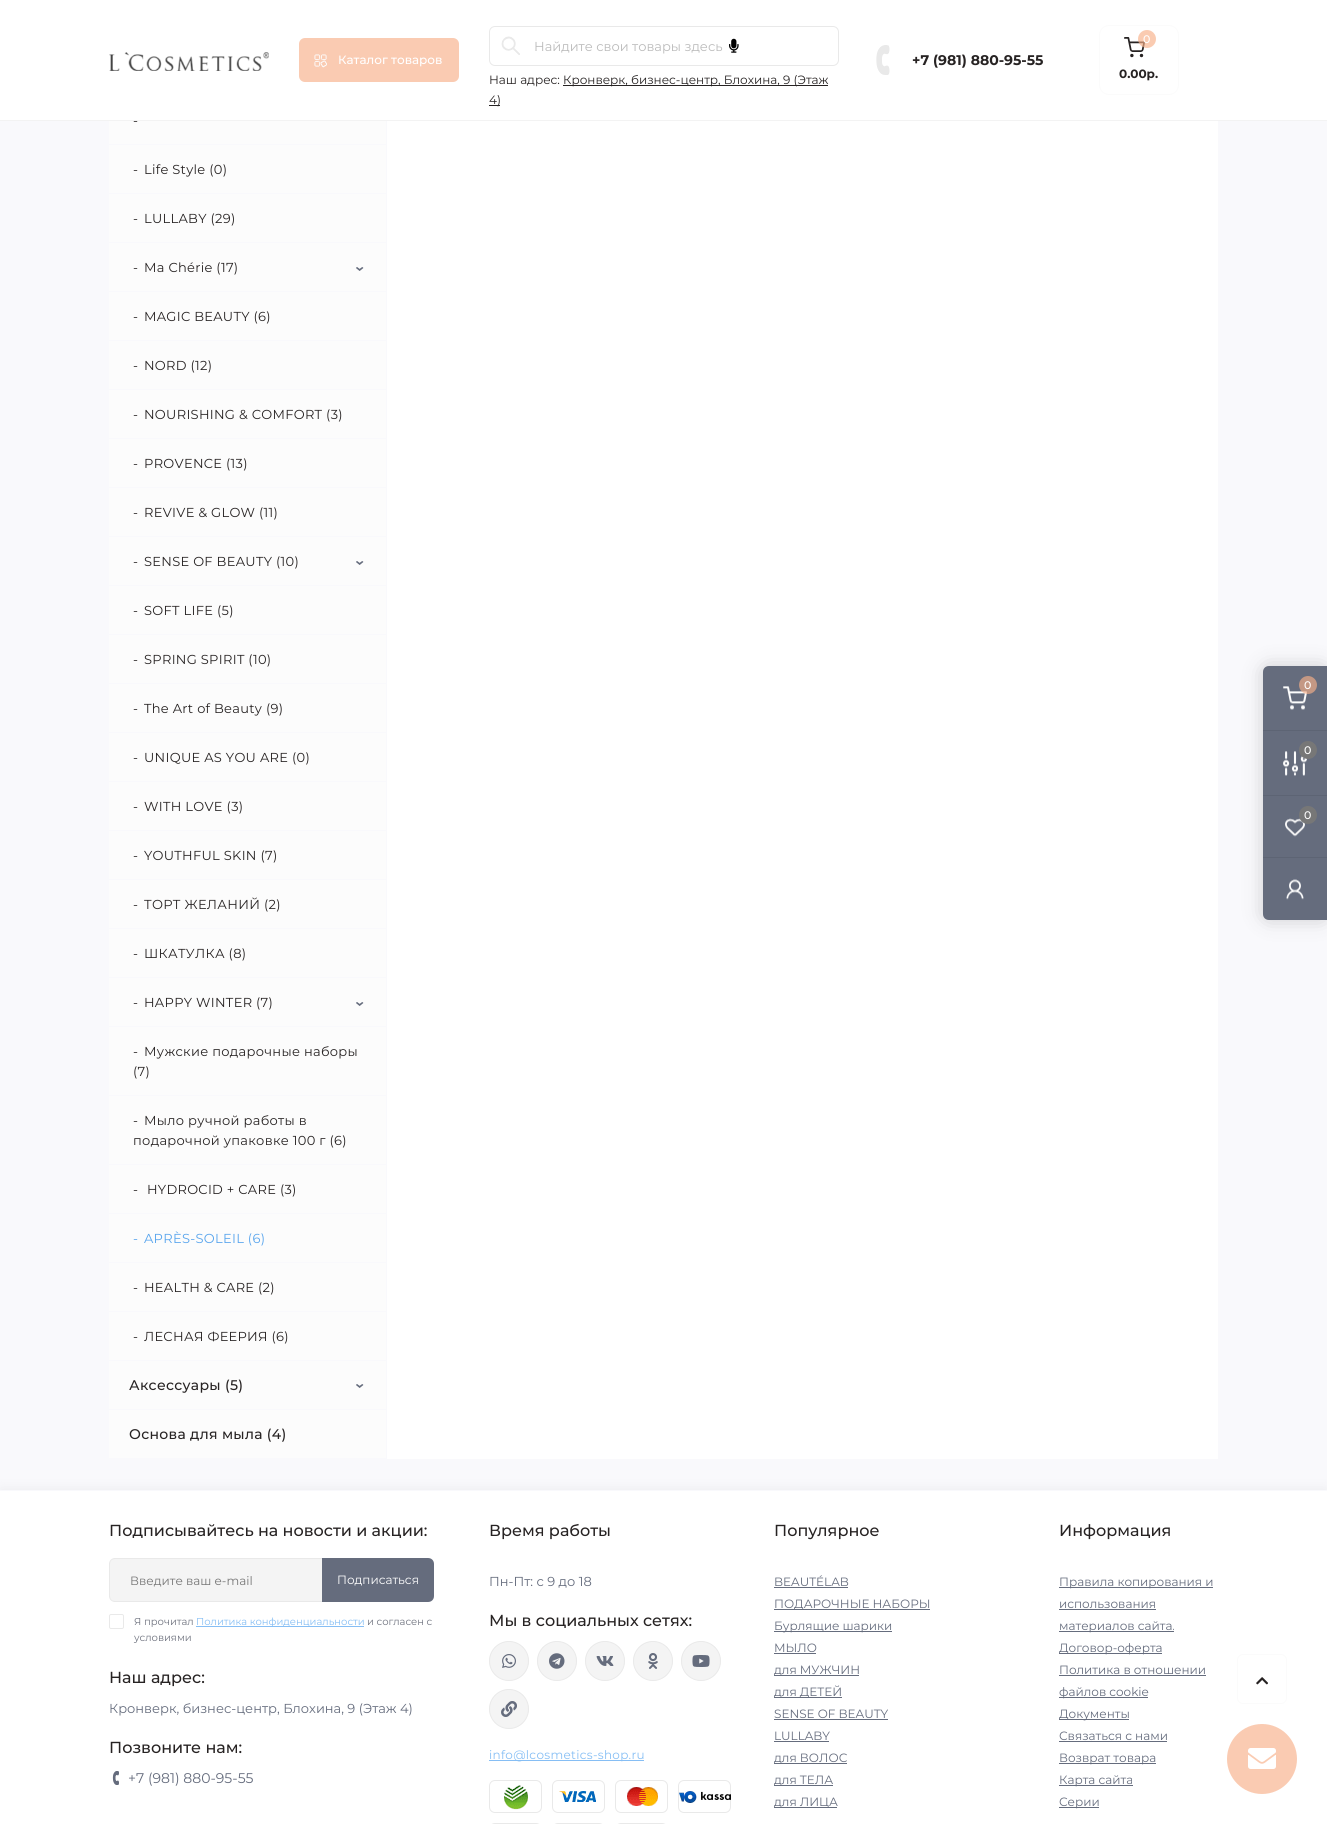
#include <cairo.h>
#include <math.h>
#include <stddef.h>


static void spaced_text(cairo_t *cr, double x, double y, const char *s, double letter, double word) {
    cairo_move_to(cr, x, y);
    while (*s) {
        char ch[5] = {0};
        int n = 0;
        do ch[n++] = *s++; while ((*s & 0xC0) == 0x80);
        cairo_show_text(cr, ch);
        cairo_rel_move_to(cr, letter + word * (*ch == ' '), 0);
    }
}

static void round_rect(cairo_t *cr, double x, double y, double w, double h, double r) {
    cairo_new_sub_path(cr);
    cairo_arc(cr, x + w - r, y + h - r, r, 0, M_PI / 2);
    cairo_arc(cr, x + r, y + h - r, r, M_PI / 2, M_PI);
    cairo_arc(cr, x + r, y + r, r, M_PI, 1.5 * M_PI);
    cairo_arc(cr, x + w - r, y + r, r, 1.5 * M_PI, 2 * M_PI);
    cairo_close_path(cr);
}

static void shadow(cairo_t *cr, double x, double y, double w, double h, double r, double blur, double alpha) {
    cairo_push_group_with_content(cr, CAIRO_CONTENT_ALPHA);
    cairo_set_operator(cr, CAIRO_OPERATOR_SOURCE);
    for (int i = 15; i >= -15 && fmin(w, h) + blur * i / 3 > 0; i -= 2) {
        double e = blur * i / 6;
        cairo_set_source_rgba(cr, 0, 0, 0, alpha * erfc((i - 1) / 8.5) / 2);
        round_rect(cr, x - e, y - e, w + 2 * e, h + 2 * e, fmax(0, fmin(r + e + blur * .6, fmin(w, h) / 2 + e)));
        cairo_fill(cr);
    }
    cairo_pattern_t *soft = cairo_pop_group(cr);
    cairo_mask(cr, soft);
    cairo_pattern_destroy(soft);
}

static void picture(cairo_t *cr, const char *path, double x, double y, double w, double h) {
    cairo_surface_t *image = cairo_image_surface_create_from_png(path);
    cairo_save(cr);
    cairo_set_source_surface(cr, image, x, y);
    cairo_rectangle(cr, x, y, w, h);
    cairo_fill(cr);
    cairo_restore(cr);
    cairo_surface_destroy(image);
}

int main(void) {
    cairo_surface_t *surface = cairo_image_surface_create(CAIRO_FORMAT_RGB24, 1327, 1824);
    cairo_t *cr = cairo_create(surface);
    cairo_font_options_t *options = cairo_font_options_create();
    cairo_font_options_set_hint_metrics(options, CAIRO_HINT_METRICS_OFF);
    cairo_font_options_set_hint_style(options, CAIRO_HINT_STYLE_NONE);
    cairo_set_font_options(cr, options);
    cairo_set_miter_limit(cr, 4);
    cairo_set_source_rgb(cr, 0.976, 0.976, 0.988);
    cairo_paint(cr);
    cairo_set_source_rgb(cr, 1, 1, 1);
    cairo_rectangle(cr, 0, 0, 1327, 120);
    cairo_fill(cr);
    cairo_set_source_rgb(cr, 0.953, 0.953, 0.953);
    cairo_rectangle(cr, 0, 120, 1327, 1);
    cairo_fill(cr);
    picture(cr, "img1.png", 109, 52, 160, 19);
    cairo_set_source_rgb(cr, 0.98, 0.796, 0.698);
    round_rect(cr, 299, 38, 160, 44, 6);
    cairo_fill(cr);
    picture(cr, "img2.png", 314, 54, 13, 14);
    cairo_select_font_face(cr, "Montserrat Medium", CAIRO_FONT_SLANT_NORMAL, CAIRO_FONT_WEIGHT_NORMAL);
    cairo_set_font_size(cr, 12);
    cairo_set_source_rgb(cr, 1, 1, 1);
    cairo_move_to(cr, 338, 64);
    cairo_show_text(cr, "Каталог товаров");
    round_rect(cr, 489.5, 26.5, 349, 39, 5.5);
    cairo_set_source_rgb(cr, 0.914, 0.914, 0.914);
    cairo_set_line_width(cr, 1);
    cairo_stroke(cr);
    picture(cr, "img3.png", 501, 36, 19, 19);
    cairo_select_font_face(cr, "Montserrat", CAIRO_FONT_SLANT_NORMAL, CAIRO_FONT_WEIGHT_NORMAL);
    cairo_set_font_size(cr, 13);
    cairo_set_source_rgb(cr, 0.733, 0.733, 0.733);
    cairo_move_to(cr, 534, 51);
    cairo_show_text(cr, "Найдите свои товары здесь");
    picture(cr, "img4.png", 729, 38, 10, 15);
    cairo_set_font_size(cr, 12);
    cairo_set_source_rgb(cr, 0.153, 0.137, 0.137);
    cairo_move_to(cr, 489, 84);
    cairo_show_text(cr, "Наш адрес:");
    cairo_rectangle(cr, 563, 85, 265, 1);
    cairo_fill(cr);
    cairo_move_to(cr, 563, 84);
    cairo_show_text(cr, "Кронверк, бизнес-центр, Блохина, 9 (Этаж");
    cairo_rectangle(cr, 489, 105, 11, 1);
    cairo_fill(cr);
    cairo_move_to(cr, 489, 104);
    cairo_show_text(cr, "4)");
    picture(cr, "img5.png", 876, 45, 14, 30);
    cairo_select_font_face(cr, "Montserrat", CAIRO_FONT_SLANT_NORMAL, CAIRO_FONT_WEIGHT_BOLD);
    cairo_set_font_size(cr, 14);
    cairo_move_to(cr, 912, 65);
    cairo_show_text(cr, "+7 (981) 880-95-55");
    round_rect(cr, 1099.5, 25.5, 79, 69, 9.5);
    cairo_set_source_rgb(cr, 0.984, 0.984, 0.984);
    cairo_stroke(cr);
    picture(cr, "img6.png", 1124, 37, 21, 21);
    cairo_set_source_rgba(cr, 0.973, 0.686, 0.533, 0.65);
    cairo_arc(cr, 1147, 39, 9, 0, 2 * M_PI);
    cairo_fill(cr);
    cairo_select_font_face(cr, "Montserrat Medium", CAIRO_FONT_SLANT_NORMAL, CAIRO_FONT_WEIGHT_NORMAL);
    cairo_set_font_size(cr, 11);
    cairo_set_source_rgb(cr, 1, 1, 1);
    cairo_move_to(cr, 1143, 43);
    cairo_show_text(cr, "0");
    cairo_select_font_face(cr, "Montserrat", CAIRO_FONT_SLANT_NORMAL, CAIRO_FONT_WEIGHT_BOLD);
    cairo_set_font_size(cr, 12);
    cairo_set_source_rgb(cr, 0.153, 0.137, 0.137);
    cairo_move_to(cr, 1119, 78);
    cairo_show_text(cr, "0.00р.");
    cairo_set_source_rgb(cr, 0.988, 0.988, 0.988);
    cairo_rectangle(cr, 109, 121, 277, 1239);
    cairo_fill(cr);
    cairo_set_source_rgb(cr, 0.976, 0.976, 0.988);
    cairo_rectangle(cr, 109, 144, 277, 1);
    cairo_fill(cr);
    cairo_select_font_face(cr, "Montserrat", CAIRO_FONT_SLANT_NORMAL, CAIRO_FONT_WEIGHT_NORMAL);
    cairo_set_font_size(cr, 13);
    cairo_set_source_rgb(cr, 0.153, 0.137, 0.137);
    spaced_text(cr, 133, 125, "-", 0.3, 0);
    cairo_set_source_rgb(cr, 0.976, 0.976, 0.988);
    cairo_rectangle(cr, 109, 193, 277, 1);
    cairo_fill(cr);
    cairo_set_source_rgb(cr, 0.153, 0.137, 0.137);
    spaced_text(cr, 133, 174, "-", 0.3, 0);
    spaced_text(cr, 144, 174, "Life Style (0)", 0.3, 0);
    cairo_set_source_rgb(cr, 0.976, 0.976, 0.988);
    cairo_rectangle(cr, 109, 242, 277, 1);
    cairo_fill(cr);
    cairo_set_source_rgb(cr, 0.153, 0.137, 0.137);
    spaced_text(cr, 133, 223, "-", 0.3, 0);
    spaced_text(cr, 144, 223, "LULLABY (29)", 0.3, 0);
    cairo_set_source_rgb(cr, 0.976, 0.976, 0.988);
    cairo_rectangle(cr, 109, 291, 277, 1);
    cairo_fill(cr);
    cairo_set_source_rgb(cr, 0.153, 0.137, 0.137);
    spaced_text(cr, 133, 272, "-", 0.3, 0);
    spaced_text(cr, 144, 272, "Ma Chérie (17)", 0.3, 0);
    picture(cr, "img7.png", 356, 267, 8, 4);
    cairo_set_source_rgb(cr, 0.976, 0.976, 0.988);
    cairo_rectangle(cr, 109, 340, 277, 1);
    cairo_fill(cr);
    cairo_set_source_rgb(cr, 0.153, 0.137, 0.137);
    spaced_text(cr, 133, 321, "-", 0.3, 0);
    spaced_text(cr, 144, 321, "MAGIC BEAUTY (6)", 0.3, 0);
    cairo_set_source_rgb(cr, 0.976, 0.976, 0.988);
    cairo_rectangle(cr, 109, 389, 277, 1);
    cairo_fill(cr);
    cairo_set_source_rgb(cr, 0.153, 0.137, 0.137);
    spaced_text(cr, 133, 370, "-", 0.3, 0);
    spaced_text(cr, 144, 370, "NORD (12)", 0.3, 0);
    cairo_set_source_rgb(cr, 0.976, 0.976, 0.988);
    cairo_rectangle(cr, 109, 438, 277, 1);
    cairo_fill(cr);
    cairo_set_source_rgb(cr, 0.153, 0.137, 0.137);
    spaced_text(cr, 133, 419, "-", 0.3, 0);
    spaced_text(cr, 144, 419, "NOURISHING & СOMFORT (3)", 0.3, 0);
    cairo_set_source_rgb(cr, 0.976, 0.976, 0.988);
    cairo_rectangle(cr, 109, 487, 277, 1);
    cairo_fill(cr);
    cairo_set_source_rgb(cr, 0.153, 0.137, 0.137);
    spaced_text(cr, 133, 468, "-", 0.3, 0);
    spaced_text(cr, 144, 468, "PROVENCE (13)", 0.3, 0);
    cairo_set_source_rgb(cr, 0.976, 0.976, 0.988);
    cairo_rectangle(cr, 109, 536, 277, 1);
    cairo_fill(cr);
    cairo_set_source_rgb(cr, 0.153, 0.137, 0.137);
    spaced_text(cr, 133, 517, "-", 0.3, 0);
    spaced_text(cr, 144, 517, "REVIVE & GLOW (11)", 0.3, 0);
    cairo_set_source_rgb(cr, 0.976, 0.976, 0.988);
    cairo_rectangle(cr, 109, 585, 277, 1);
    cairo_fill(cr);
    cairo_set_source_rgb(cr, 0.153, 0.137, 0.137);
    spaced_text(cr, 133, 566, "-", 0.3, 0);
    spaced_text(cr, 144, 566, "SENSE OF BEAUTY (10)", 0.3, 0);
    picture(cr, "img7.png", 356, 561, 8, 4);
    cairo_set_source_rgb(cr, 0.976, 0.976, 0.988);
    cairo_rectangle(cr, 109, 634, 277, 1);
    cairo_fill(cr);
    cairo_set_source_rgb(cr, 0.153, 0.137, 0.137);
    spaced_text(cr, 133, 615, "-", 0.3, 0);
    spaced_text(cr, 144, 615, "SOFT LIFE (5)", 0.3, 0);
    cairo_set_source_rgb(cr, 0.976, 0.976, 0.988);
    cairo_rectangle(cr, 109, 683, 277, 1);
    cairo_fill(cr);
    cairo_set_source_rgb(cr, 0.153, 0.137, 0.137);
    spaced_text(cr, 133, 664, "-", 0.3, 0);
    spaced_text(cr, 144, 664, "SPRING SPIRIT (10)", 0.3, 0);
    cairo_set_source_rgb(cr, 0.976, 0.976, 0.988);
    cairo_rectangle(cr, 109, 732, 277, 1);
    cairo_fill(cr);
    cairo_set_source_rgb(cr, 0.153, 0.137, 0.137);
    spaced_text(cr, 133, 713, "-", 0.3, 0);
    spaced_text(cr, 144, 713, "The Art of Beauty (9)", 0.3, 0);
    cairo_set_source_rgb(cr, 0.976, 0.976, 0.988);
    cairo_rectangle(cr, 109, 781, 277, 1);
    cairo_fill(cr);
    cairo_set_source_rgb(cr, 0.153, 0.137, 0.137);
    spaced_text(cr, 133, 762, "-", 0.3, 0);
    spaced_text(cr, 144, 762, "UNIQUE AS YOU ARE (0)", 0.3, 0);
    cairo_set_source_rgb(cr, 0.976, 0.976, 0.988);
    cairo_rectangle(cr, 109, 830, 277, 1);
    cairo_fill(cr);
    cairo_set_source_rgb(cr, 0.153, 0.137, 0.137);
    spaced_text(cr, 133, 811, "-", 0.3, 0);
    spaced_text(cr, 144, 811, "WITH LOVE (3)", 0.3, 0);
    cairo_set_source_rgb(cr, 0.976, 0.976, 0.988);
    cairo_rectangle(cr, 109, 879, 277, 1);
    cairo_fill(cr);
    cairo_set_source_rgb(cr, 0.153, 0.137, 0.137);
    spaced_text(cr, 133, 860, "-", 0.3, 0);
    spaced_text(cr, 144, 860, "YOUTHFUL SKIN (7)", 0.3, 0);
    cairo_set_source_rgb(cr, 0.976, 0.976, 0.988);
    cairo_rectangle(cr, 109, 928, 277, 1);
    cairo_fill(cr);
    cairo_set_source_rgb(cr, 0.153, 0.137, 0.137);
    spaced_text(cr, 133, 909, "-", 0.3, 0);
    spaced_text(cr, 144, 909, "ТОРТ ЖЕЛАНИЙ (2)", 0.3, 0);
    cairo_set_source_rgb(cr, 0.976, 0.976, 0.988);
    cairo_rectangle(cr, 109, 977, 277, 1);
    cairo_fill(cr);
    cairo_set_source_rgb(cr, 0.153, 0.137, 0.137);
    spaced_text(cr, 133, 958, "-", 0.3, 0);
    spaced_text(cr, 144, 958, "ШКАТУЛКА (8)", 0.3, 0);
    cairo_set_source_rgb(cr, 0.976, 0.976, 0.988);
    cairo_rectangle(cr, 109, 1026, 277, 1);
    cairo_fill(cr);
    cairo_set_source_rgb(cr, 0.153, 0.137, 0.137);
    spaced_text(cr, 133, 1007, "-", 0.3, 0);
    spaced_text(cr, 144, 1007, "HAPPY WINTER (7)", 0.3, 0);
    picture(cr, "img7.png", 356, 1002, 8, 4);
    cairo_set_source_rgb(cr, 0.976, 0.976, 0.988);
    cairo_rectangle(cr, 109, 1095, 277, 1);
    cairo_fill(cr);
    cairo_set_source_rgb(cr, 0.153, 0.137, 0.137);
    spaced_text(cr, 133, 1056, "-", 0.3, 0);
    spaced_text(cr, 144, 1056, "Мужские подарочные наборы", 0.3, 0);
    spaced_text(cr, 133, 1076, "(7)", 0.3, 0);
    cairo_set_source_rgb(cr, 0.976, 0.976, 0.988);
    cairo_rectangle(cr, 109, 1164, 277, 1);
    cairo_fill(cr);
    cairo_set_source_rgb(cr, 0.153, 0.137, 0.137);
    spaced_text(cr, 133, 1125, "-", 0.3, 0);
    spaced_text(cr, 144, 1125, "Мыло ручной работы в", 0.3, 0);
    spaced_text(cr, 133, 1145, "подарочной упаковке 100 г (6)", 0.3, 0);
    cairo_set_source_rgb(cr, 0.976, 0.976, 0.988);
    cairo_rectangle(cr, 109, 1213, 277, 1);
    cairo_fill(cr);
    cairo_set_source_rgb(cr, 0.153, 0.137, 0.137);
    spaced_text(cr, 133, 1194, "-", 0.3, 0);
    spaced_text(cr, 147, 1194, "HYDROCID + CARE (3)", 0.3, 0);
    cairo_set_source_rgb(cr, 0.976, 0.976, 0.988);
    cairo_rectangle(cr, 109, 1262, 277, 1);
    cairo_fill(cr);
    cairo_set_source_rgb(cr, 0.341, 0.643, 0.929);
    spaced_text(cr, 133, 1243, "-", 0.3, 0);
    spaced_text(cr, 144, 1243, "APRÈS-SOLEIL (6)", 0.3, 0);
    cairo_set_source_rgb(cr, 0.976, 0.976, 0.988);
    cairo_rectangle(cr, 109, 1311, 277, 1);
    cairo_fill(cr);
    cairo_set_source_rgb(cr, 0.153, 0.137, 0.137);
    spaced_text(cr, 133, 1292, "-", 0.3, 0);
    spaced_text(cr, 144, 1292, "HEALTH & CARE (2)", 0.3, 0);
    spaced_text(cr, 133, 1341, "-", 0.3, 0);
    spaced_text(cr, 144, 1341, "ЛЕСНАЯ ФЕЕРИЯ (6)", 0.3, 0);
    cairo_set_source_rgb(cr, 0.988, 0.988, 0.988);
    cairo_rectangle(cr, 109, 1361, 277, 48);
    cairo_fill(cr);
    cairo_select_font_face(cr, "Montserrat Medium", CAIRO_FONT_SLANT_NORMAL, CAIRO_FONT_WEIGHT_NORMAL);
    cairo_set_font_size(cr, 14);
    cairo_set_source_rgb(cr, 0.153, 0.137, 0.137);
    spaced_text(cr, 129, 1390, "Аксессуары (5)", 0.3, 0);
    picture(cr, "img7.png", 356, 1384, 8, 4);
    cairo_set_source_rgb(cr, 0.988, 0.988, 0.988);
    cairo_rectangle(cr, 109, 1410, 277, 48);
    cairo_fill(cr);
    cairo_set_source_rgb(cr, 0.153, 0.137, 0.137);
    spaced_text(cr, 129, 1439, "Основа для мыла (4)", 0.3, 0);
    cairo_set_source_rgb(cr, 1, 1, 1);
    cairo_rectangle(cr, 387, 121, 831, 1338);
    cairo_fill(cr);
    cairo_set_source_rgb(cr, 0, 0, 0);
    shadow(cr, 1263, 666, 64, 254, 6, 10, 0.17);
    cairo_set_source_rgb(cr, 0.396, 0.424, 0.49);
    cairo_new_path(cr);
    cairo_move_to(cr, 1269, 666);
    cairo_line_to(cr, 1327, 666);
    cairo_line_to(cr, 1327, 920);
    cairo_line_to(cr, 1269, 920);
    cairo_curve_to(cr, 1265.5, 920, 1263, 917.5, 1263, 914);
    cairo_line_to(cr, 1263, 672);
    cairo_curve_to(cr, 1263, 668.5, 1265.5, 666, 1269, 666);
    cairo_close_path(cr);
    cairo_fill(cr);
    picture(cr, "img8.png", 1283, 686, 24, 24);
    cairo_set_source_rgba(cr, 0.973, 0.686, 0.533, 0.65);
    cairo_arc(cr, 1308, 685, 9, 0, 2 * M_PI);
    cairo_fill(cr);
    cairo_set_font_size(cr, 11);
    cairo_set_source_rgb(cr, 1, 1, 1);
    cairo_move_to(cr, 1304, 689);
    cairo_show_text(cr, "0");
    cairo_set_source_rgb(cr, 0.365, 0.392, 0.455);
    cairo_rectangle(cr, 1263, 730, 64, 1);
    cairo_fill(cr);
    picture(cr, "img9.png", 1283, 751, 24, 25);
    cairo_set_source_rgb(cr, 0.467, 0.467, 0.467);
    cairo_arc(cr, 1308, 750, 9, 0, 2 * M_PI);
    cairo_fill(cr);
    cairo_set_source_rgb(cr, 1, 1, 1);
    cairo_move_to(cr, 1304, 754);
    cairo_show_text(cr, "0");
    cairo_set_source_rgb(cr, 0.365, 0.392, 0.455);
    cairo_rectangle(cr, 1263, 795, 64, 1);
    cairo_fill(cr);
    picture(cr, "img10.png", 1285, 818, 20, 19);
    cairo_set_source_rgb(cr, 0.467, 0.467, 0.467);
    cairo_arc(cr, 1308, 815, 9, 0, 2 * M_PI);
    cairo_fill(cr);
    cairo_set_source_rgb(cr, 1, 1, 1);
    cairo_move_to(cr, 1304, 819);
    cairo_show_text(cr, "0");
    cairo_set_source_rgb(cr, 0.365, 0.392, 0.455);
    cairo_rectangle(cr, 1263, 857, 64, 1);
    cairo_fill(cr);
    picture(cr, "img11.png", 1286, 879, 18, 21);
    cairo_set_source_rgb(cr, 0, 0, 0);
    shadow(cr, 0, 1490, 1327, 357, 0, 7.5, 0.06);
    cairo_set_source_rgb(cr, 1, 1, 1);
    cairo_rectangle(cr, 0, 1491, 1327, 333);
    cairo_fill(cr);
    cairo_set_source_rgb(cr, 0.976, 0.976, 0.988);
    cairo_rectangle(cr, 0, 1490, 1327, 1);
    cairo_fill(cr);
    cairo_set_font_size(cr, 16);
    cairo_set_source_rgb(cr, 0.153, 0.137, 0.137);
    cairo_move_to(cr, 109, 1536);
    cairo_show_text(cr, "Подписывайтесь на новости и акции:");
    cairo_set_source_rgb(cr, 0.957, 0.957, 0.957);
    cairo_new_path(cr);
    cairo_move_to(cr, 115, 1558);
    cairo_line_to(cr, 322, 1558);
    cairo_line_to(cr, 322, 1602);
    cairo_line_to(cr, 115, 1602);
    cairo_curve_to(cr, 111.5, 1602, 109, 1599.5, 109, 1596);
    cairo_line_to(cr, 109, 1564);
    cairo_curve_to(cr, 109, 1560.5, 111.5, 1558, 115, 1558);
    cairo_close_path(cr);
    cairo_fill(cr);
    cairo_set_source_rgb(cr, 0.914, 0.914, 0.914);
    cairo_set_fill_rule(cr, CAIRO_FILL_RULE_EVEN_ODD);
    cairo_new_path(cr);
    cairo_move_to(cr, 115, 1558);
    cairo_line_to(cr, 322, 1558);
    cairo_line_to(cr, 322, 1602);
    cairo_line_to(cr, 115, 1602);
    cairo_curve_to(cr, 112, 1602, 109, 1599, 109, 1596);
    cairo_line_to(cr, 109, 1564);
    cairo_curve_to(cr, 109, 1561, 112, 1558, 115, 1558);
    cairo_close_path(cr);
    cairo_move_to(cr, 115, 1559);
    cairo_line_to(cr, 322, 1559);
    cairo_line_to(cr, 322, 1601);
    cairo_line_to(cr, 115, 1601);
    cairo_curve_to(cr, 112, 1601, 110, 1599, 110, 1596);
    cairo_line_to(cr, 110, 1564);
    cairo_curve_to(cr, 110, 1561, 112, 1559, 115, 1559);
    cairo_close_path(cr);
    cairo_fill(cr);
    cairo_select_font_face(cr, "Montserrat", CAIRO_FONT_SLANT_NORMAL, CAIRO_FONT_WEIGHT_NORMAL);
    cairo_set_font_size(cr, 12);
    cairo_set_source_rgb(cr, 0.459, 0.459, 0.459);
    cairo_move_to(cr, 130, 1585);
    cairo_show_text(cr, "Введите ваш e-mail");
    cairo_set_source_rgb(cr, 0.396, 0.424, 0.49);
    cairo_new_path(cr);
    cairo_move_to(cr, 322, 1558);
    cairo_line_to(cr, 428, 1558);
    cairo_curve_to(cr, 431.5, 1558, 434, 1560.5, 434, 1564);
    cairo_line_to(cr, 434, 1596);
    cairo_curve_to(cr, 434, 1599.5, 431.5, 1602, 428, 1602);
    cairo_line_to(cr, 322, 1602);
    cairo_close_path(cr);
    cairo_fill(cr);
    cairo_set_source_rgb(cr, 1, 1, 1);
    cairo_move_to(cr, 337, 1584);
    cairo_show_text(cr, "Подписаться");
    round_rect(cr, 109.5, 1614.5, 14, 14, 1.5);
    cairo_set_source_rgb(cr, 0.914, 0.914, 0.914);
    cairo_stroke(cr);
    cairo_set_font_size(cr, 10);
    cairo_set_source_rgb(cr, 0.431, 0.447, 0.494);
    cairo_move_to(cr, 134, 1625);
    cairo_show_text(cr, "Я прочитал");
    cairo_set_source_rgb(cr, 0.525, 0.745, 0.957);
    cairo_rectangle(cr, 196, 1626, 168, 1);
    cairo_fill(cr);
    cairo_set_source_rgb(cr, 0.522, 0.745, 0.957);
    cairo_move_to(cr, 196, 1625);
    cairo_show_text(cr, "Политика конфиденциальности");
    cairo_set_source_rgb(cr, 0.431, 0.447, 0.494);
    cairo_move_to(cr, 367, 1625);
    cairo_show_text(cr, "и согласен с");
    cairo_move_to(cr, 134, 1641);
    cairo_show_text(cr, "условиями");
    cairo_select_font_face(cr, "Montserrat Medium", CAIRO_FONT_SLANT_NORMAL, CAIRO_FONT_WEIGHT_NORMAL);
    cairo_set_font_size(cr, 16);
    cairo_set_source_rgb(cr, 0.153, 0.137, 0.137);
    cairo_move_to(cr, 109, 1683);
    cairo_show_text(cr, "Наш адрес:");
    cairo_select_font_face(cr, "Montserrat", CAIRO_FONT_SLANT_NORMAL, CAIRO_FONT_WEIGHT_NORMAL);
    cairo_set_font_size(cr, 13);
    cairo_set_source_rgb(cr, 0.396, 0.424, 0.49);
    cairo_move_to(cr, 109, 1713);
    cairo_show_text(cr, "Кронверк, бизнес-центр, Блохина, 9 (Этаж 4)");
    cairo_select_font_face(cr, "Montserrat Medium", CAIRO_FONT_SLANT_NORMAL, CAIRO_FONT_WEIGHT_NORMAL);
    cairo_set_font_size(cr, 16);
    cairo_set_source_rgb(cr, 0.153, 0.137, 0.137);
    cairo_move_to(cr, 109, 1753);
    cairo_show_text(cr, "Позвоните нам:");
    picture(cr, "img12.png", 112, 1771, 7, 14);
    cairo_select_font_face(cr, "Montserrat", CAIRO_FONT_SLANT_NORMAL, CAIRO_FONT_WEIGHT_NORMAL);
    cairo_set_font_size(cr, 14);
    cairo_set_source_rgb(cr, 0.396, 0.424, 0.49);
    cairo_move_to(cr, 128, 1783);
    cairo_show_text(cr, "+7 (981) 880-95-55");
    cairo_select_font_face(cr, "Montserrat Medium", CAIRO_FONT_SLANT_NORMAL, CAIRO_FONT_WEIGHT_NORMAL);
    cairo_set_font_size(cr, 16);
    cairo_set_source_rgb(cr, 0.153, 0.137, 0.137);
    cairo_move_to(cr, 489, 1536);
    cairo_show_text(cr, "Время работы");
    cairo_select_font_face(cr, "Montserrat", CAIRO_FONT_SLANT_NORMAL, CAIRO_FONT_WEIGHT_NORMAL);
    cairo_set_font_size(cr, 13);
    cairo_set_source_rgb(cr, 0.396, 0.424, 0.49);
    cairo_move_to(cr, 489, 1586);
    cairo_show_text(cr, "Пн-Пт: с 9 до 18");
    cairo_select_font_face(cr, "Montserrat Medium", CAIRO_FONT_SLANT_NORMAL, CAIRO_FONT_WEIGHT_NORMAL);
    cairo_set_font_size(cr, 16);
    cairo_set_source_rgb(cr, 0.153, 0.137, 0.137);
    cairo_move_to(cr, 489, 1626);
    cairo_show_text(cr, "Мы в социальных сетях:");
    cairo_set_source_rgb(cr, 0.957, 0.957, 0.957);
    cairo_new_path(cr);
    cairo_arc(cr, 509, 1661, 19.5, 0, 2 * M_PI);
    cairo_fill_preserve(cr);
    cairo_set_source_rgb(cr, 0.914, 0.914, 0.914);
    cairo_stroke(cr);
    picture(cr, "img13.png", 502, 1654, 14, 14);
    cairo_set_source_rgb(cr, 0.957, 0.957, 0.957);
    cairo_arc(cr, 557, 1661, 19.5, 0, 2 * M_PI);
    cairo_fill_preserve(cr);
    cairo_set_source_rgb(cr, 0.914, 0.914, 0.914);
    cairo_stroke(cr);
    picture(cr, "img14.png", 549, 1653, 16, 16);
    cairo_set_source_rgb(cr, 0.957, 0.957, 0.957);
    cairo_arc(cr, 605, 1661, 19.5, 0, 2 * M_PI);
    cairo_fill_preserve(cr);
    cairo_set_source_rgb(cr, 0.914, 0.914, 0.914);
    cairo_stroke(cr);
    picture(cr, "img15.png", 596, 1656, 18, 10);
    cairo_set_source_rgb(cr, 0.957, 0.957, 0.957);
    cairo_arc(cr, 653, 1661, 19.5, 0, 2 * M_PI);
    cairo_fill_preserve(cr);
    cairo_set_source_rgb(cr, 0.914, 0.914, 0.914);
    cairo_stroke(cr);
    picture(cr, "img16.png", 648, 1653, 10, 16);
    cairo_set_source_rgb(cr, 0.957, 0.957, 0.957);
    cairo_arc(cr, 701, 1661, 19.5, 0, 2 * M_PI);
    cairo_fill_preserve(cr);
    cairo_set_source_rgb(cr, 0.914, 0.914, 0.914);
    cairo_stroke(cr);
    picture(cr, "img17.png", 692, 1655, 18, 12);
    cairo_set_source_rgb(cr, 0.957, 0.957, 0.957);
    cairo_arc(cr, 509, 1709, 19.5, 0, 2 * M_PI);
    cairo_fill_preserve(cr);
    cairo_set_source_rgb(cr, 0.914, 0.914, 0.914);
    cairo_stroke(cr);
    picture(cr, "img18.png", 501, 1701, 16, 16);
    cairo_set_source_rgb(cr, 0.525, 0.745, 0.957);
    cairo_rectangle(cr, 489, 1760, 155, 1);
    cairo_fill(cr);
    cairo_select_font_face(cr, "Montserrat", CAIRO_FONT_SLANT_NORMAL, CAIRO_FONT_WEIGHT_NORMAL);
    cairo_set_font_size(cr, 12);
    cairo_set_source_rgb(cr, 0.522, 0.745, 0.957);
    spaced_text(cr, 489, 1759, "info@lcosmetics-shop.ru", 0.3, 0);
    picture(cr, "img19.png", 504, 1785, 24, 25);
    round_rect(cr, 489.5, 1780.5, 52, 32, 5.5);
    cairo_set_source_rgb(cr, 0.914, 0.914, 0.914);
    cairo_stroke(cr);
    picture(cr, "img20.png", 559, 1791, 37, 11);
    round_rect(cr, 552.5, 1780.5, 52, 32, 5.5);
    cairo_stroke(cr);
    picture(cr, "img21.png", 627, 1787, 31, 19);
    round_rect(cr, 615.5, 1780.5, 52, 32, 5.5);
    cairo_stroke(cr);
    round_rect(cr, 678.5, 1780.5, 52, 32, 5.5);
    cairo_stroke(cr);
    picture(cr, "img22.png", 679, 1791, 52, 12);
    round_rect(cr, 489.5, 1823.5, 52, 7, 5.5);
    cairo_stroke(cr);
    round_rect(cr, 552.5, 1823.5, 52, 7, 5.5);
    cairo_stroke(cr);
    round_rect(cr, 615.5, 1823.5, 52, 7, 5.5);
    cairo_stroke(cr);
    cairo_select_font_face(cr, "Montserrat Medium", CAIRO_FONT_SLANT_NORMAL, CAIRO_FONT_WEIGHT_NORMAL);
    cairo_set_font_size(cr, 16);
    cairo_set_source_rgb(cr, 0.153, 0.137, 0.137);
    cairo_move_to(cr, 774, 1536);
    cairo_show_text(cr, "Популярное");
    cairo_select_font_face(cr, "Montserrat", CAIRO_FONT_SLANT_NORMAL, CAIRO_FONT_WEIGHT_NORMAL);
    cairo_set_font_size(cr, 12);
    cairo_set_source_rgb(cr, 0.396, 0.424, 0.49);
    cairo_move_to(cr, 774, 1586);
    cairo_show_text(cr, "BEAUTÉLAB");
    cairo_rectangle(cr, 774, 1587, 74, 1);
    cairo_fill(cr);
    cairo_rectangle(cr, 774, 1609, 156, 1);
    cairo_fill(cr);
    cairo_move_to(cr, 774, 1608);
    cairo_show_text(cr, "ПОДАРОЧНЫЕ НАБОРЫ");
    cairo_rectangle(cr, 774, 1631, 118, 1);
    cairo_fill(cr);
    cairo_move_to(cr, 774, 1630);
    cairo_show_text(cr, "Бурлящие шарики");
    cairo_move_to(cr, 774, 1652);
    cairo_show_text(cr, "МЫЛО");
    cairo_rectangle(cr, 774, 1653, 42, 1);
    cairo_fill(cr);
    cairo_rectangle(cr, 774, 1675, 85, 1);
    cairo_fill(cr);
    cairo_move_to(cr, 774, 1674);
    cairo_show_text(cr, "для МУЖЧИН");
    cairo_rectangle(cr, 774, 1697, 68, 1);
    cairo_fill(cr);
    cairo_move_to(cr, 774, 1696);
    cairo_show_text(cr, "для ДЕТЕЙ");
    cairo_move_to(cr, 774, 1718);
    cairo_show_text(cr, "SENSE OF BEAUTY");
    cairo_rectangle(cr, 774, 1719, 114, 1);
    cairo_fill(cr);
    cairo_move_to(cr, 774, 1740);
    cairo_show_text(cr, "LULLABY");
    cairo_rectangle(cr, 774, 1741, 55, 1);
    cairo_fill(cr);
    cairo_rectangle(cr, 774, 1763, 73, 1);
    cairo_fill(cr);
    cairo_move_to(cr, 774, 1762);
    cairo_show_text(cr, "для ВОЛОС");
    cairo_rectangle(cr, 774, 1785, 59, 1);
    cairo_fill(cr);
    cairo_move_to(cr, 774, 1784);
    cairo_show_text(cr, "для ТЕЛА");
    cairo_rectangle(cr, 774, 1807, 63, 1);
    cairo_fill(cr);
    cairo_move_to(cr, 774, 1806);
    cairo_show_text(cr, "для ЛИЦА");
    cairo_select_font_face(cr, "Montserrat Medium", CAIRO_FONT_SLANT_NORMAL, CAIRO_FONT_WEIGHT_NORMAL);
    cairo_set_font_size(cr, 16);
    cairo_set_source_rgb(cr, 0.153, 0.137, 0.137);
    cairo_move_to(cr, 1059, 1536);
    cairo_show_text(cr, "Информация");
    cairo_set_source_rgb(cr, 0.396, 0.424, 0.49);
    cairo_rectangle(cr, 1059, 1587, 154, 1);
    cairo_fill(cr);
    cairo_select_font_face(cr, "Montserrat", CAIRO_FONT_SLANT_NORMAL, CAIRO_FONT_WEIGHT_NORMAL);
    cairo_set_font_size(cr, 12);
    cairo_move_to(cr, 1059, 1586);
    cairo_show_text(cr, "Правила копирования и");
    cairo_move_to(cr, 1059, 1608);
    cairo_show_text(cr, "использования");
    cairo_rectangle(cr, 1059, 1609, 97, 1);
    cairo_fill(cr);
    cairo_rectangle(cr, 1059, 1631, 115, 1);
    cairo_fill(cr);
    cairo_move_to(cr, 1059, 1630);
    cairo_show_text(cr, "материалов сайта.");
    cairo_rectangle(cr, 1059, 1653, 103, 1);
    cairo_fill(cr);
    cairo_move_to(cr, 1059, 1652);
    cairo_show_text(cr, "Договор-оферта");
    cairo_move_to(cr, 1059, 1674);
    cairo_show_text(cr, "Политика в отношении");
    cairo_rectangle(cr, 1059, 1675, 147, 1);
    cairo_fill(cr);
    cairo_rectangle(cr, 1059, 1697, 89, 1);
    cairo_fill(cr);
    cairo_move_to(cr, 1059, 1696);
    cairo_show_text(cr, "файлов cookie");
    cairo_rectangle(cr, 1059, 1719, 70, 1);
    cairo_fill(cr);
    cairo_move_to(cr, 1059, 1718);
    cairo_show_text(cr, "Документы");
    cairo_move_to(cr, 1059, 1740);
    cairo_show_text(cr, "Связаться с нами");
    cairo_rectangle(cr, 1059, 1741, 108, 1);
    cairo_fill(cr);
    cairo_rectangle(cr, 1059, 1763, 97, 1);
    cairo_fill(cr);
    cairo_move_to(cr, 1059, 1762);
    cairo_show_text(cr, "Возврат товара");
    cairo_rectangle(cr, 1059, 1785, 74, 1);
    cairo_fill(cr);
    cairo_move_to(cr, 1059, 1784);
    cairo_show_text(cr, "Карта сайта");
    cairo_rectangle(cr, 1059, 1807, 40, 1);
    cairo_fill(cr);
    cairo_move_to(cr, 1059, 1806);
    cairo_show_text(cr, "Серии");
    cairo_set_source_rgb(cr, 0.98, 0.796, 0.698);
    cairo_new_path(cr);
    cairo_arc(cr, 1262, 1759, 35, 0, 2 * M_PI);
    cairo_fill(cr);
    picture(cr, "img23.png", 1248, 1748, 28, 21);
    round_rect(cr, 1237.5, 1654.5, 49, 49, 5.5);
    cairo_set_source_rgb(cr, 0.984, 0.984, 0.984);
    cairo_stroke(cr);
    picture(cr, "img24.png", 1256, 1677, 12, 8);
    cairo_surface_write_to_png(surface, "page.png");
    cairo_font_options_destroy(options);
    cairo_destroy(cr);
    cairo_surface_destroy(surface);
    return 0;
}
